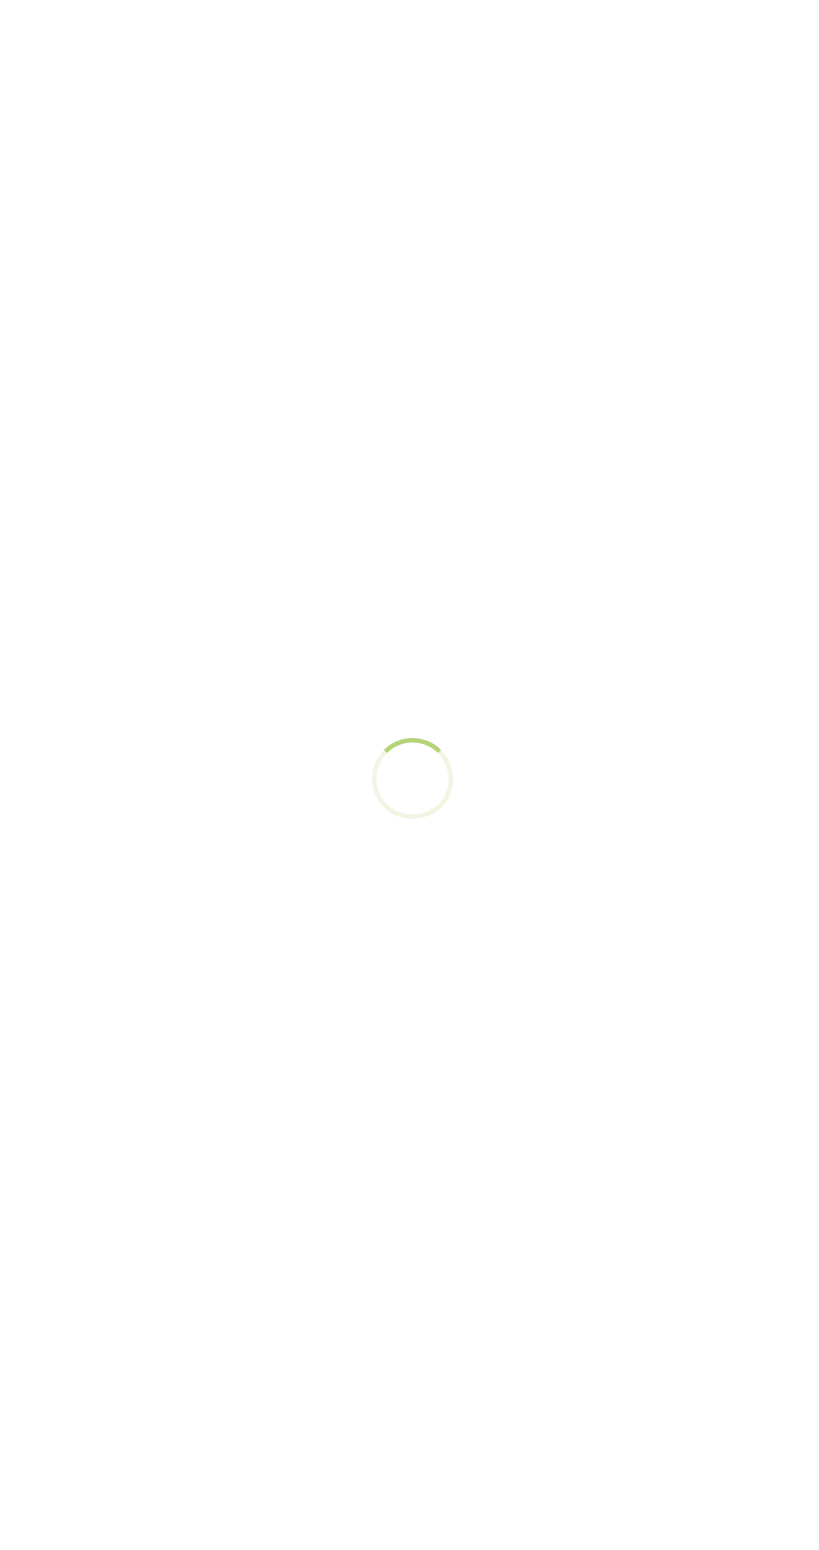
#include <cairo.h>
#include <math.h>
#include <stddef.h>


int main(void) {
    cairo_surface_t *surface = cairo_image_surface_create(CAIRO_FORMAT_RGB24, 819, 1550);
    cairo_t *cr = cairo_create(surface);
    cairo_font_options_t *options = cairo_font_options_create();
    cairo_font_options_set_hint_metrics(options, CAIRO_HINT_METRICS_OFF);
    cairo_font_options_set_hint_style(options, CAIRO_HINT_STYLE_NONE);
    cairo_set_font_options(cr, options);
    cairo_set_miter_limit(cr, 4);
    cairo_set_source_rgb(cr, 1, 1, 1);
    cairo_paint(cr);
    cairo_new_path(cr);
    cairo_move_to(cr, 385.5, 751.5);
    cairo_curve_to(cr, 400, 736.5, 425, 736.5, 439.5, 751.5);
    cairo_set_source_rgb(cr, 0.71, 0.831, 0.471);
    cairo_set_line_width(cr, 4.5);
    cairo_stroke(cr);
    cairo_new_path(cr);
    cairo_move_to(cr, 439.5, 751.5);
    cairo_curve_to(cr, 446.5, 758.5, 450.5, 768.5, 451, 778.5);
    cairo_curve_to(cr, 451, 824.5, 384, 831, 375, 786);
    cairo_curve_to(cr, 372.5, 773.5, 376.5, 760.5, 385.5, 751.5);
    cairo_set_source_rgba(cr, 0.71, 0.831, 0.471, 0.2);
    cairo_stroke(cr);
    cairo_surface_write_to_png(surface, "page.png");
    cairo_font_options_destroy(options);
    cairo_destroy(cr);
    cairo_surface_destroy(surface);
    return 0;
}
